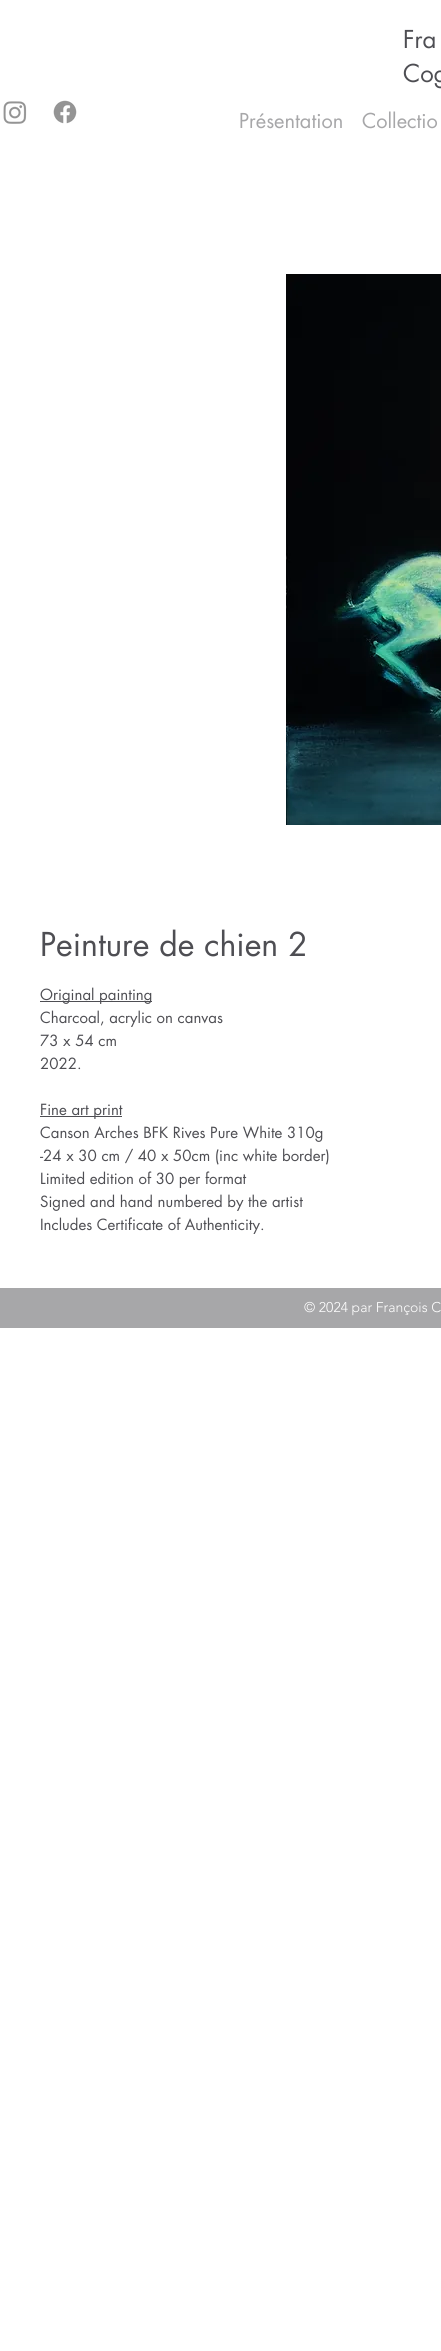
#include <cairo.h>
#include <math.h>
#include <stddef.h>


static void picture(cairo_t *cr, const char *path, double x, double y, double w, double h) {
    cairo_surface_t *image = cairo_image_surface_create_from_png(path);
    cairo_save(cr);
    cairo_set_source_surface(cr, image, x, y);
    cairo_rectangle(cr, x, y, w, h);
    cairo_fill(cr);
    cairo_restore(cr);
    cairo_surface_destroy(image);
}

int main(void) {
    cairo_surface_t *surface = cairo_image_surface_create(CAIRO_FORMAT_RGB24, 441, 2351);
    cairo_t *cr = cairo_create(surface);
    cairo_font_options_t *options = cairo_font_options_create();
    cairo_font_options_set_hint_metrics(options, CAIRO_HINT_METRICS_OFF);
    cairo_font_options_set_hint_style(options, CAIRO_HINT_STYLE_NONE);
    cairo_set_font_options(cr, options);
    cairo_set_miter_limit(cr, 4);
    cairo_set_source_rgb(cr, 1, 1, 1);
    cairo_paint(cr);
    cairo_select_font_face(cr, "futura", CAIRO_FONT_SLANT_NORMAL, CAIRO_FONT_WEIGHT_NORMAL);
    cairo_set_font_size(cr, 24);
    cairo_set_source_rgb(cr, 0.306, 0.306, 0.325);
    cairo_move_to(cr, 403, 48);
    cairo_show_text(cr, "Fra");
    cairo_move_to(cr, 403, 82);
    cairo_show_text(cr, "Cog");
    picture(cr, "img1.png", 3, 101, 24, 23);
    picture(cr, "img2.png", 53, 100, 24, 24);
    cairo_set_font_size(cr, 20);
    cairo_set_source_rgb(cr, 0.655, 0.655, 0.663);
    cairo_move_to(cr, 239, 128);
    cairo_show_text(cr, "Présentation");
    cairo_move_to(cr, 362, 128);
    cairo_show_text(cr, "Collectio");
    picture(cr, "img3.png", 286, 274, 155, 551);
    cairo_set_font_size(cr, 32);
    cairo_set_source_rgb(cr, 0.306, 0.306, 0.325);
    cairo_move_to(cr, 40, 956);
    cairo_show_text(cr, "Peinture de chien 2");
    cairo_rectangle(cr, 40, 1001, 112, 1);
    cairo_fill(cr);
    cairo_set_font_size(cr, 15);
    cairo_move_to(cr, 40, 1000);
    cairo_show_text(cr, "Original painting");
    cairo_move_to(cr, 40, 1023);
    cairo_show_text(cr, "Charcoal, acrylic on canvas");
    cairo_move_to(cr, 40, 1046);
    cairo_show_text(cr, "73 x 54 cm");
    cairo_move_to(cr, 40, 1069);
    cairo_show_text(cr, "2022.");
    cairo_rectangle(cr, 40, 1116, 82, 1);
    cairo_fill(cr);
    cairo_move_to(cr, 40, 1115);
    cairo_show_text(cr, "Fine art print");
    cairo_move_to(cr, 40, 1138);
    cairo_show_text(cr, "Canson Arches BFK Rives Pure White 310g");
    cairo_move_to(cr, 40, 1161);
    cairo_show_text(cr, "-24 x 30 cm / 40 x 50cm (inc white border)");
    cairo_move_to(cr, 40, 1184);
    cairo_show_text(cr, "Limited edition of 30 per format");
    cairo_move_to(cr, 40, 1207);
    cairo_show_text(cr, "Signed and hand numbered by the artist");
    cairo_move_to(cr, 40, 1230);
    cairo_show_text(cr, "Includes Certificate of Authenticity.");
    cairo_set_source_rgb(cr, 0.655, 0.655, 0.663);
    cairo_rectangle(cr, 0, 1288, 441, 40);
    cairo_fill(cr);
    cairo_select_font_face(cr, "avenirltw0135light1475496 Light", CAIRO_FONT_SLANT_NORMAL, CAIRO_FONT_WEIGHT_NORMAL);
    cairo_set_font_size(cr, 14);
    cairo_set_source_rgb(cr, 1, 1, 1);
    cairo_move_to(cr, 304, 1312);
    cairo_show_text(cr, "© 2024 par François C");
    cairo_surface_write_to_png(surface, "page.png");
    cairo_font_options_destroy(options);
    cairo_destroy(cr);
    cairo_surface_destroy(surface);
    return 0;
}
